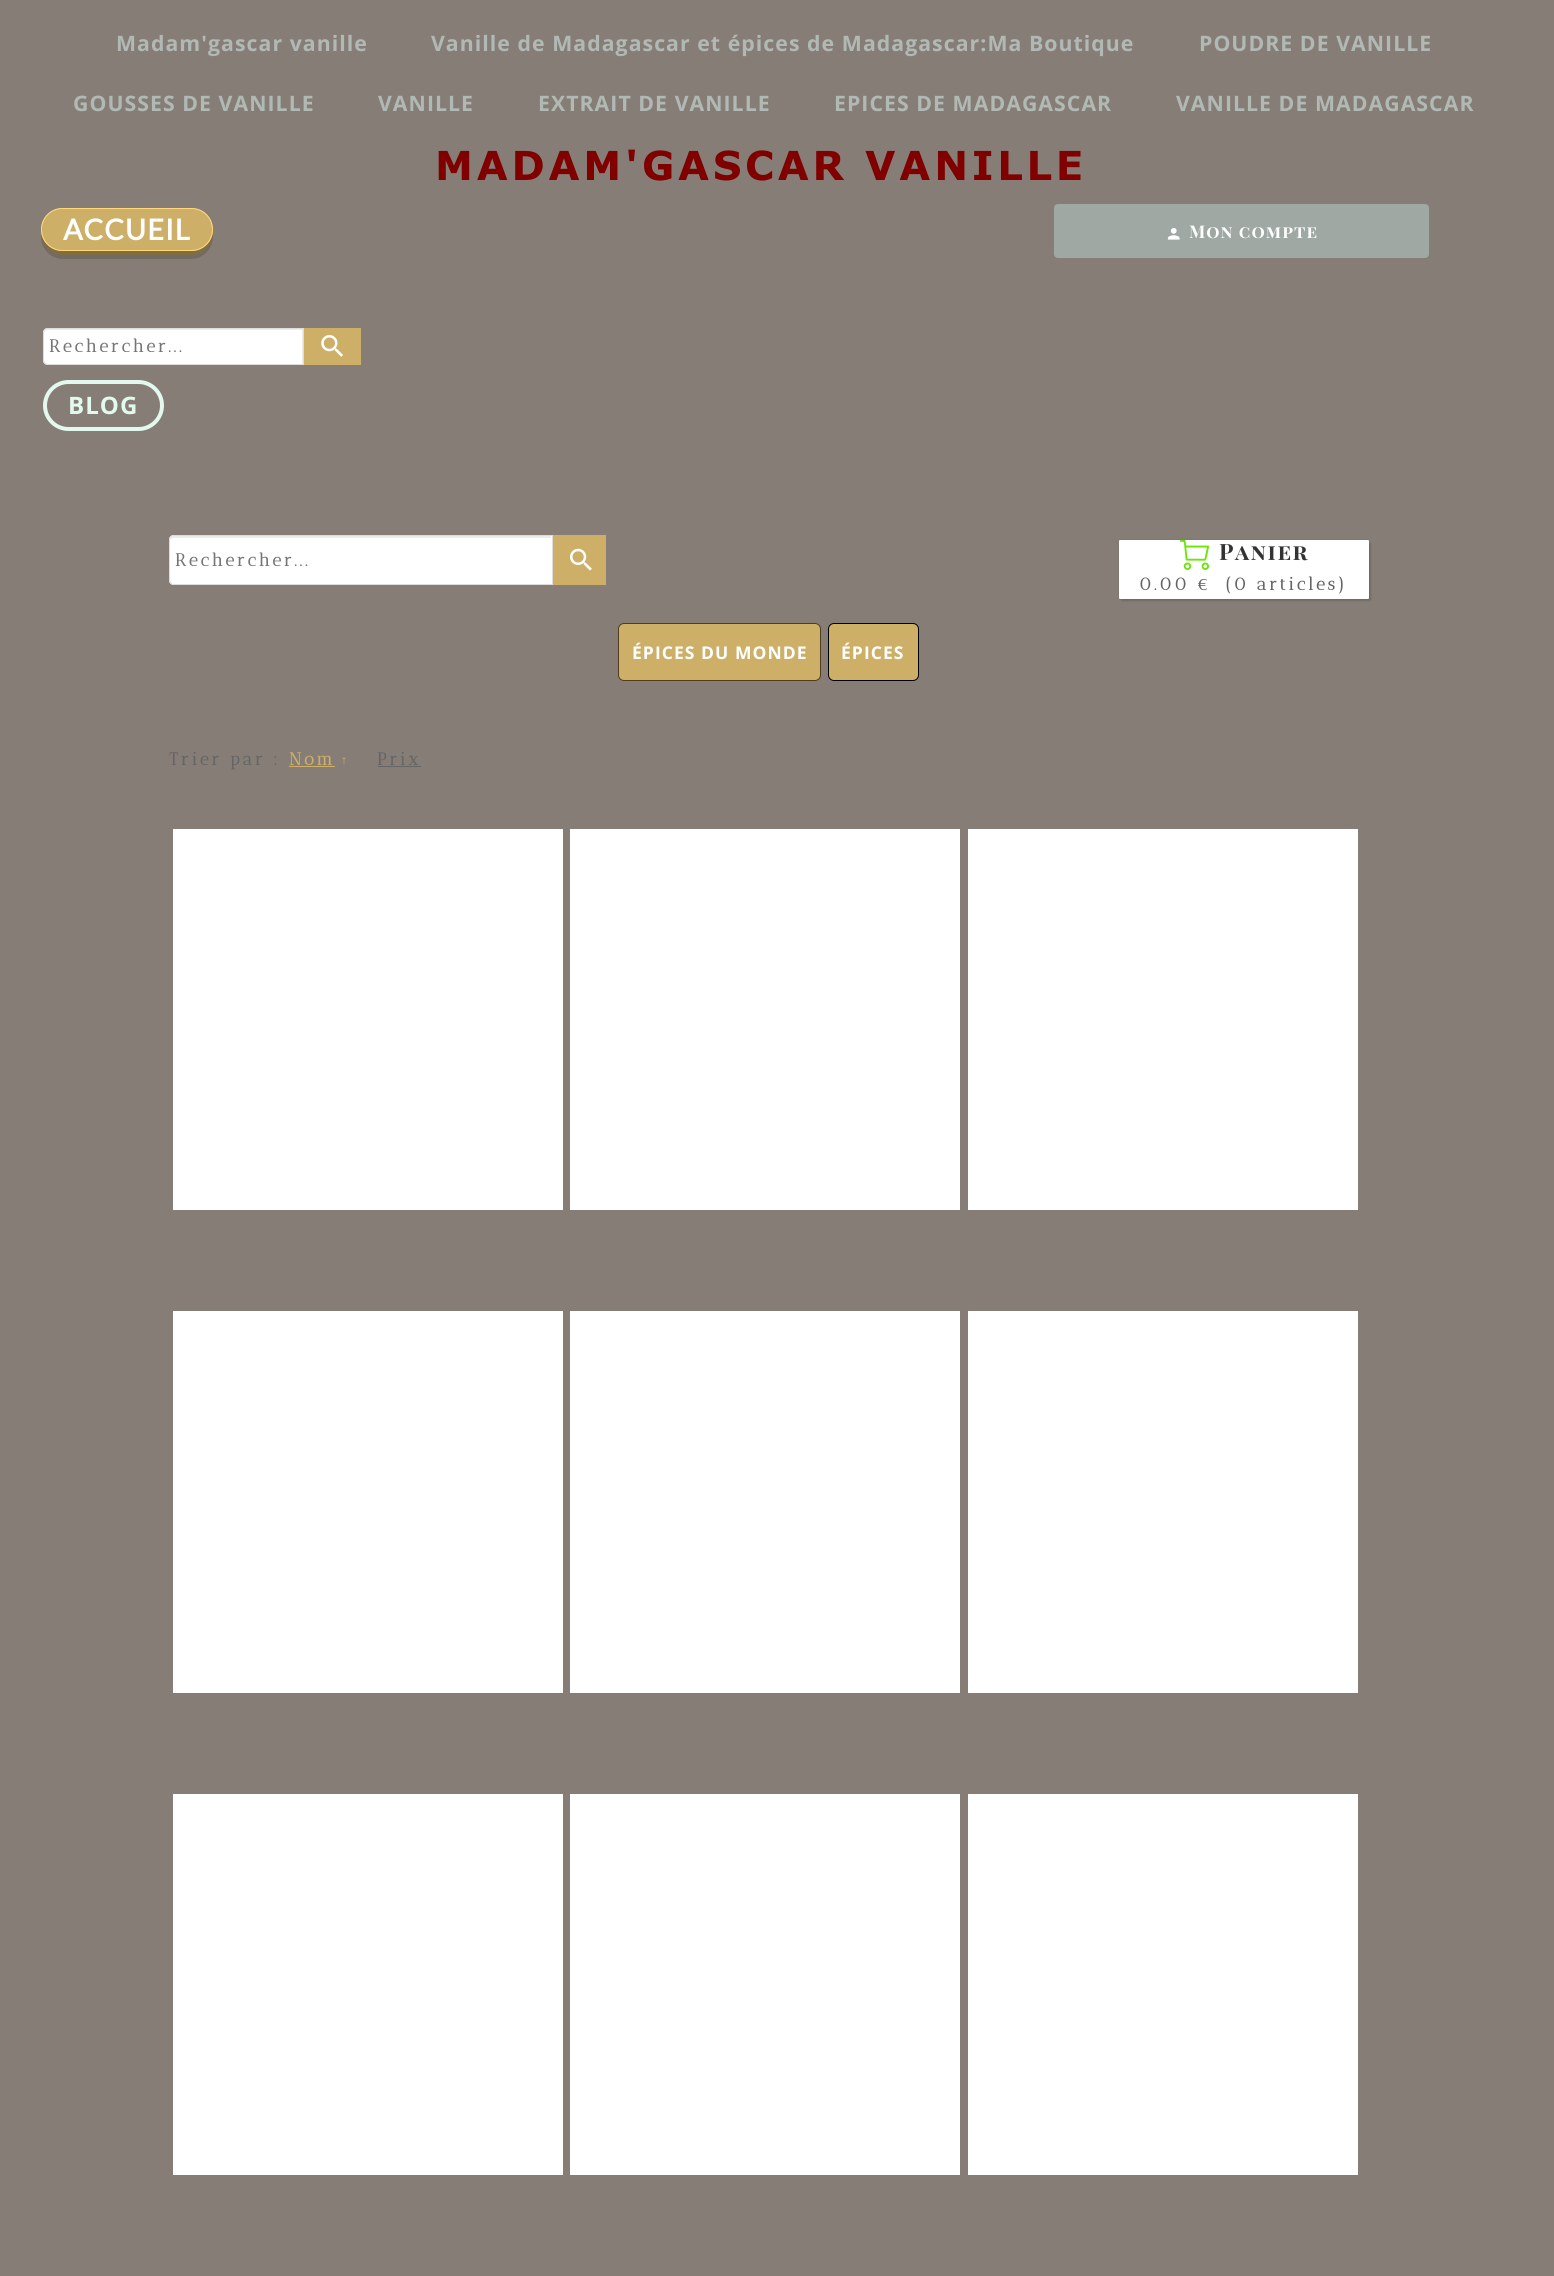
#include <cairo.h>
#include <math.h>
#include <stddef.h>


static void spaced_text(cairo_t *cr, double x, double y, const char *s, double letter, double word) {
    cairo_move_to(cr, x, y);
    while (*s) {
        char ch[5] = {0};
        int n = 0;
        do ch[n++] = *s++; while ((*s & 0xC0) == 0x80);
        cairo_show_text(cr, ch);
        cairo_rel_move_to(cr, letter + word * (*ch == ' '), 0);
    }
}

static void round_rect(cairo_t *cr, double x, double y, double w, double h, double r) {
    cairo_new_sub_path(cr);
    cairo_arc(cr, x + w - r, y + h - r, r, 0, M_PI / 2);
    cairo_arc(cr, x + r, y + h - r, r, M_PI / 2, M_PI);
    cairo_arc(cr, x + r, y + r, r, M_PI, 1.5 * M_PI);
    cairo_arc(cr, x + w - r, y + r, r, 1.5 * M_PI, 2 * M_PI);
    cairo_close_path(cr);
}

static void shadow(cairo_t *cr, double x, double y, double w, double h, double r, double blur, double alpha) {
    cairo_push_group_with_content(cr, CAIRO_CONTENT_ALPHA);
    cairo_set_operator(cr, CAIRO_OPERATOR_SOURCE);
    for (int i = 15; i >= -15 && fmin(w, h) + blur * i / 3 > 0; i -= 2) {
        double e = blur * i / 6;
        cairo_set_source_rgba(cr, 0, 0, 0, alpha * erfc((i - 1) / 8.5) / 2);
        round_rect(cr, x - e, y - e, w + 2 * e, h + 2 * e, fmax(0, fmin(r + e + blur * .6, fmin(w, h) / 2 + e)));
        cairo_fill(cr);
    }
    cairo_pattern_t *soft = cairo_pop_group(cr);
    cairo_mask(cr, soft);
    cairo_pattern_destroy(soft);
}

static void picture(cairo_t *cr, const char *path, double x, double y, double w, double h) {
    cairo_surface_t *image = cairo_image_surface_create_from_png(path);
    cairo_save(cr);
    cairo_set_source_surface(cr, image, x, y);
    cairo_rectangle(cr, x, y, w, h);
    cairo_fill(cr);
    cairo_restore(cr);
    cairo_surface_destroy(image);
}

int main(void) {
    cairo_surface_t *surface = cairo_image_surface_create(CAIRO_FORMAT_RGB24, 1554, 2276);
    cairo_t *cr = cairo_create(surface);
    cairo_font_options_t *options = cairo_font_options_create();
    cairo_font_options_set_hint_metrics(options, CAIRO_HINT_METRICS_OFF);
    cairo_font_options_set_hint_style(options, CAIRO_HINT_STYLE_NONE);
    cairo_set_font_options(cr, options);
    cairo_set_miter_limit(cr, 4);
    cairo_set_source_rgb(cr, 0.525, 0.494, 0.463);
    cairo_paint(cr);
    cairo_select_font_face(cr, "Open Sans", CAIRO_FONT_SLANT_NORMAL, CAIRO_FONT_WEIGHT_BOLD);
    cairo_set_font_size(cr, 21.25);
    cairo_set_source_rgb(cr, 0.694, 0.725, 0.71);
    spaced_text(cr, 116, 51, "Madam'gascar vanille", 1.05, 0);
    spaced_text(cr, 431, 51, "Vanille de Madagascar et épices de Madagascar:Ma Boutique", 1.05, 0);
    spaced_text(cr, 1199, 51, "POUDRE DE VANILLE", 1.05, 0);
    spaced_text(cr, 73, 111, "GOUSSES DE VANILLE", 1.05, 0);
    spaced_text(cr, 378, 111, "VANILLE", 1.05, 0);
    spaced_text(cr, 538, 111, "EXTRAIT DE VANILLE", 1.05, 0);
    spaced_text(cr, 834, 111, "EPICES DE MADAGASCAR", 1.05, 0);
    spaced_text(cr, 1176, 111, "VANILLE DE MADAGASCAR", 1.05, 0);
    cairo_select_font_face(cr, "Verdana", CAIRO_FONT_SLANT_NORMAL, CAIRO_FONT_WEIGHT_BOLD);
    cairo_set_font_size(cr, 40);
    cairo_set_source_rgb(cr, 0.502, 0, 0);
    spaced_text(cr, 435, 180, "MADAM'GASCAR VANILLE", 3.75, 0);
    cairo_set_source_rgb(cr, 0.447, 0.42, 0.392);
    cairo_new_path(cr);
    cairo_move_to(cr, 41, 232);
    cairo_line_to(cr, 41, 237);
    cairo_curve_to(cr, 41, 249, 51, 259, 63, 259);
    cairo_line_to(cr, 191, 259);
    cairo_curve_to(cr, 203, 259, 213, 249, 213, 237);
    cairo_line_to(cr, 212, 232);
    cairo_curve_to(cr, 211, 243, 202, 251, 191, 251);
    cairo_line_to(cr, 63, 251);
    cairo_curve_to(cr, 52, 251, 43, 243, 41, 232);
    cairo_close_path(cr);
    cairo_fill(cr);
    cairo_set_source_rgb(cr, 0.506, 0.427, 0.247);
    cairo_new_path(cr);
    cairo_move_to(cr, 41, 230);
    cairo_line_to(cr, 41, 233);
    cairo_curve_to(cr, 41, 245, 51, 255, 63, 255);
    cairo_line_to(cr, 191, 255);
    cairo_curve_to(cr, 203, 255, 213, 245, 213, 233);
    cairo_line_to(cr, 212, 228);
    cairo_line_to(cr, 212, 229);
    cairo_curve_to(cr, 212, 241, 203, 251, 191, 251);
    cairo_line_to(cr, 63, 251);
    cairo_curve_to(cr, 51, 251, 41, 242, 41, 230);
    cairo_close_path(cr);
    cairo_fill(cr);
    cairo_set_source_rgb(cr, 0.808, 0.686, 0.404);
    round_rect(cr, 41.5, 208.5, 171, 42, 21);
    cairo_fill_preserve(cr);
    cairo_set_source_rgb(cr, 0.808, 0.682, 0.392);
    cairo_set_line_width(cr, 1);
    cairo_stroke(cr);
    round_rect(cr, 41.5, 208.5, 171, 42, 21);
    cairo_set_source_rgb(cr, 1, 0.847, 0.486);
    cairo_stroke(cr);
    cairo_select_font_face(cr, "Lato", CAIRO_FONT_SLANT_NORMAL, CAIRO_FONT_WEIGHT_BOLD);
    cairo_set_font_size(cr, 28.75);
    cairo_set_source_rgb(cr, 1, 1, 1);
    spaced_text(cr, 63, 240, "ACCUEIL", 1.05, 0);
    cairo_set_source_rgb(cr, 0.624, 0.659, 0.639);
    round_rect(cr, 1054, 204, 375, 54, 4);
    cairo_fill(cr);
    picture(cr, "img1.png", 1167, 228, 13, 12);
    cairo_select_font_face(cr, "Playfair Display SC", CAIRO_FONT_SLANT_NORMAL, CAIRO_FONT_WEIGHT_BOLD);
    cairo_set_font_size(cr, 17.5);
    cairo_set_source_rgb(cr, 1, 1, 1);
    spaced_text(cr, 1189, 238, "Mon compte", 1.05, 0);
    cairo_new_path(cr);
    cairo_move_to(cr, 48, 328);
    cairo_line_to(cr, 304, 328);
    cairo_line_to(cr, 304, 365);
    cairo_line_to(cr, 48, 365);
    cairo_curve_to(cr, 45, 365, 43, 363, 43, 360);
    cairo_line_to(cr, 43, 333);
    cairo_curve_to(cr, 43, 330, 45, 328, 48, 328);
    cairo_close_path(cr);
    cairo_fill(cr);
    cairo_set_source_rgb(cr, 0.925, 0.925, 0.925);
    cairo_new_path(cr);
    cairo_move_to(cr, 48, 330);
    cairo_line_to(cr, 302, 330);
    cairo_line_to(cr, 302, 364);
    cairo_line_to(cr, 303, 364);
    cairo_line_to(cr, 303, 329);
    cairo_line_to(cr, 48, 329);
    cairo_curve_to(cr, 46, 329, 44, 331, 44, 333);
    cairo_line_to(cr, 44, 334);
    cairo_curve_to(cr, 44, 332, 45, 330, 48, 330);
    cairo_close_path(cr);
    cairo_fill(cr);
    cairo_new_path(cr);
    cairo_move_to(cr, 48, 328.5);
    cairo_line_to(cr, 303.5, 328.5);
    cairo_line_to(cr, 303.5, 364.5);
    cairo_line_to(cr, 48, 364.5);
    cairo_curve_to(cr, 45.5, 364.5, 43.5, 362.5, 43.5, 360);
    cairo_line_to(cr, 43.5, 333);
    cairo_curve_to(cr, 43.5, 330.5, 45.5, 328.5, 48, 328.5);
    cairo_close_path(cr);
    cairo_set_source_rgb(cr, 0.867, 0.867, 0.867);
    cairo_stroke(cr);
    cairo_select_font_face(cr, "Antic Didone", CAIRO_FONT_SLANT_NORMAL, CAIRO_FONT_WEIGHT_BOLD);
    cairo_set_source_rgb(cr, 0.459, 0.459, 0.459);
    spaced_text(cr, 49, 352, "Rechercher...", 2.75, 0);
    cairo_set_source_rgb(cr, 0.808, 0.686, 0.404);
    cairo_rectangle(cr, 304, 328, 57, 37);
    cairo_fill(cr);
    picture(cr, "img2.png", 321, 335, 22, 22);
    round_rect(cr, 45, 382, 117, 47, 23.5);
    cairo_set_source_rgb(cr, 0.894, 0.976, 0.929);
    cairo_set_line_width(cr, 4);
    cairo_stroke(cr);
    cairo_select_font_face(cr, "Open Sans", CAIRO_FONT_SLANT_NORMAL, CAIRO_FONT_WEIGHT_BOLD);
    cairo_set_font_size(cr, 24);
    spaced_text(cr, 68, 414, "BLOG", 1.05, 0);
    cairo_set_source_rgb(cr, 1, 1, 1);
    cairo_new_path(cr);
    cairo_move_to(cr, 174, 535);
    cairo_line_to(cr, 553, 535);
    cairo_line_to(cr, 553, 585);
    cairo_line_to(cr, 174, 585);
    cairo_curve_to(cr, 171, 585, 169, 583, 169, 580);
    cairo_line_to(cr, 169, 540);
    cairo_curve_to(cr, 169, 537, 171, 535, 174, 535);
    cairo_close_path(cr);
    cairo_fill(cr);
    cairo_set_source_rgb(cr, 0.925, 0.925, 0.925);
    cairo_new_path(cr);
    cairo_move_to(cr, 174, 538);
    cairo_line_to(cr, 551, 538);
    cairo_line_to(cr, 551, 536);
    cairo_line_to(cr, 174, 536);
    cairo_curve_to(cr, 171, 536, 170, 538, 170, 541);
    cairo_curve_to(cr, 170, 539, 172, 538, 174, 538);
    cairo_close_path(cr);
    cairo_fill(cr);
    cairo_new_path(cr);
    cairo_move_to(cr, 174, 535.5);
    cairo_line_to(cr, 552.5, 535.5);
    cairo_line_to(cr, 552.5, 584.5);
    cairo_line_to(cr, 174, 584.5);
    cairo_curve_to(cr, 171.5, 584.5, 169.5, 582.5, 169.5, 580);
    cairo_line_to(cr, 169.5, 540);
    cairo_curve_to(cr, 169.5, 537.5, 171.5, 535.5, 174, 535.5);
    cairo_close_path(cr);
    cairo_set_source_rgb(cr, 0.867, 0.867, 0.867);
    cairo_set_line_width(cr, 1);
    cairo_stroke(cr);
    cairo_select_font_face(cr, "Antic Didone", CAIRO_FONT_SLANT_NORMAL, CAIRO_FONT_WEIGHT_BOLD);
    cairo_set_font_size(cr, 17.5);
    cairo_set_source_rgb(cr, 0.459, 0.459, 0.459);
    spaced_text(cr, 175, 566, "Rechercher...", 2.75, 0);
    cairo_set_source_rgb(cr, 0.808, 0.686, 0.404);
    cairo_rectangle(cr, 553, 535, 53, 50);
    cairo_fill(cr);
    picture(cr, "img3.png", 570, 548, 22, 23);
    cairo_set_source_rgb(cr, 0, 0, 0);
    shadow(cr, 1121, 543, 250, 58, 1, 1, 0.15);
    shadow(cr, 1119, 540, 250, 59, 1, 1, 0.1);
    cairo_set_source_rgb(cr, 1, 1, 1);
    round_rect(cr, 1119, 540, 250, 59, 1);
    cairo_fill(cr);
    picture(cr, "img4.png", 1180, 540, 29, 30);
    cairo_select_font_face(cr, "Playfair Display SC", CAIRO_FONT_SLANT_NORMAL, CAIRO_FONT_WEIGHT_BOLD);
    cairo_set_font_size(cr, 22.5);
    cairo_set_source_rgb(cr, 0.2, 0.2, 0.2);
    spaced_text(cr, 1219, 560, "Panier", 1.5, 0);
    cairo_select_font_face(cr, "Antic Didone", CAIRO_FONT_SLANT_NORMAL, CAIRO_FONT_WEIGHT_BOLD);
    cairo_set_font_size(cr, 17.5);
    cairo_set_source_rgb(cr, 0.396, 0.396, 0.396);
    spaced_text(cr, 1139, 590, "0.00 €", 2.75, 0);
    spaced_text(cr, 1225, 590, "(0 articles)", 2.75, 0);
    cairo_set_source_rgb(cr, 0.808, 0.686, 0.404);
    round_rect(cr, 618.5, 623.5, 202, 57, 5.5);
    cairo_fill_preserve(cr);
    cairo_set_source_rgb(cr, 0.306, 0.239, 0.09);
    cairo_stroke(cr);
    cairo_select_font_face(cr, "Open Sans", CAIRO_FONT_SLANT_NORMAL, CAIRO_FONT_WEIGHT_BOLD);
    cairo_set_source_rgb(cr, 1, 1, 1);
    spaced_text(cr, 632, 659, "ÉPICES DU MONDE", 1.05, 0);
    cairo_set_source_rgb(cr, 0.808, 0.686, 0.404);
    round_rect(cr, 828.5, 623.5, 90, 57, 5.5);
    cairo_fill_preserve(cr);
    cairo_set_source_rgb(cr, 0, 0, 0);
    cairo_stroke(cr);
    cairo_set_source_rgb(cr, 1, 1, 1);
    spaced_text(cr, 841, 659, "ÉPICES", 1.05, 0);
    cairo_select_font_face(cr, "Antic Didone", CAIRO_FONT_SLANT_NORMAL, CAIRO_FONT_WEIGHT_BOLD);
    cairo_set_source_rgb(cr, 0.396, 0.396, 0.396);
    spaced_text(cr, 169, 765, "Trier par :", 2.75, 0);
    cairo_set_source_rgb(cr, 0.808, 0.686, 0.404);
    spaced_text(cr, 289, 765, "Nom", 2.75, 0);
    cairo_rectangle(cr, 289, 766, 46, 1);
    cairo_fill(cr);
    cairo_select_font_face(cr, "Liberation Serif", CAIRO_FONT_SLANT_NORMAL, CAIRO_FONT_WEIGHT_BOLD);
    cairo_set_font_size(cr, 12);
    spaced_text(cr, 341, 764, "↑", 2.75, 0);
    cairo_select_font_face(cr, "Antic Didone", CAIRO_FONT_SLANT_NORMAL, CAIRO_FONT_WEIGHT_BOLD);
    cairo_set_font_size(cr, 17.5);
    cairo_set_source_rgb(cr, 0.396, 0.396, 0.396);
    spaced_text(cr, 377, 765, "Prix", 2.75, 0);
    cairo_rectangle(cr, 378, 766, 43, 1);
    cairo_fill(cr);
    cairo_set_source_rgb(cr, 1, 1, 1);
    cairo_rectangle(cr, 173, 829, 390, 381);
    cairo_fill(cr);
    cairo_rectangle(cr, 570, 829, 390, 381);
    cairo_fill(cr);
    cairo_rectangle(cr, 968, 829, 390, 381);
    cairo_fill(cr);
    cairo_rectangle(cr, 173, 1311, 390, 382);
    cairo_fill(cr);
    cairo_rectangle(cr, 570, 1311, 390, 382);
    cairo_fill(cr);
    cairo_rectangle(cr, 968, 1311, 390, 382);
    cairo_fill(cr);
    cairo_rectangle(cr, 173, 1794, 390, 381);
    cairo_fill(cr);
    cairo_rectangle(cr, 570, 1794, 390, 381);
    cairo_fill(cr);
    cairo_rectangle(cr, 968, 1794, 390, 381);
    cairo_fill(cr);
    cairo_surface_write_to_png(surface, "page.png");
    cairo_font_options_destroy(options);
    cairo_destroy(cr);
    cairo_surface_destroy(surface);
    return 0;
}
